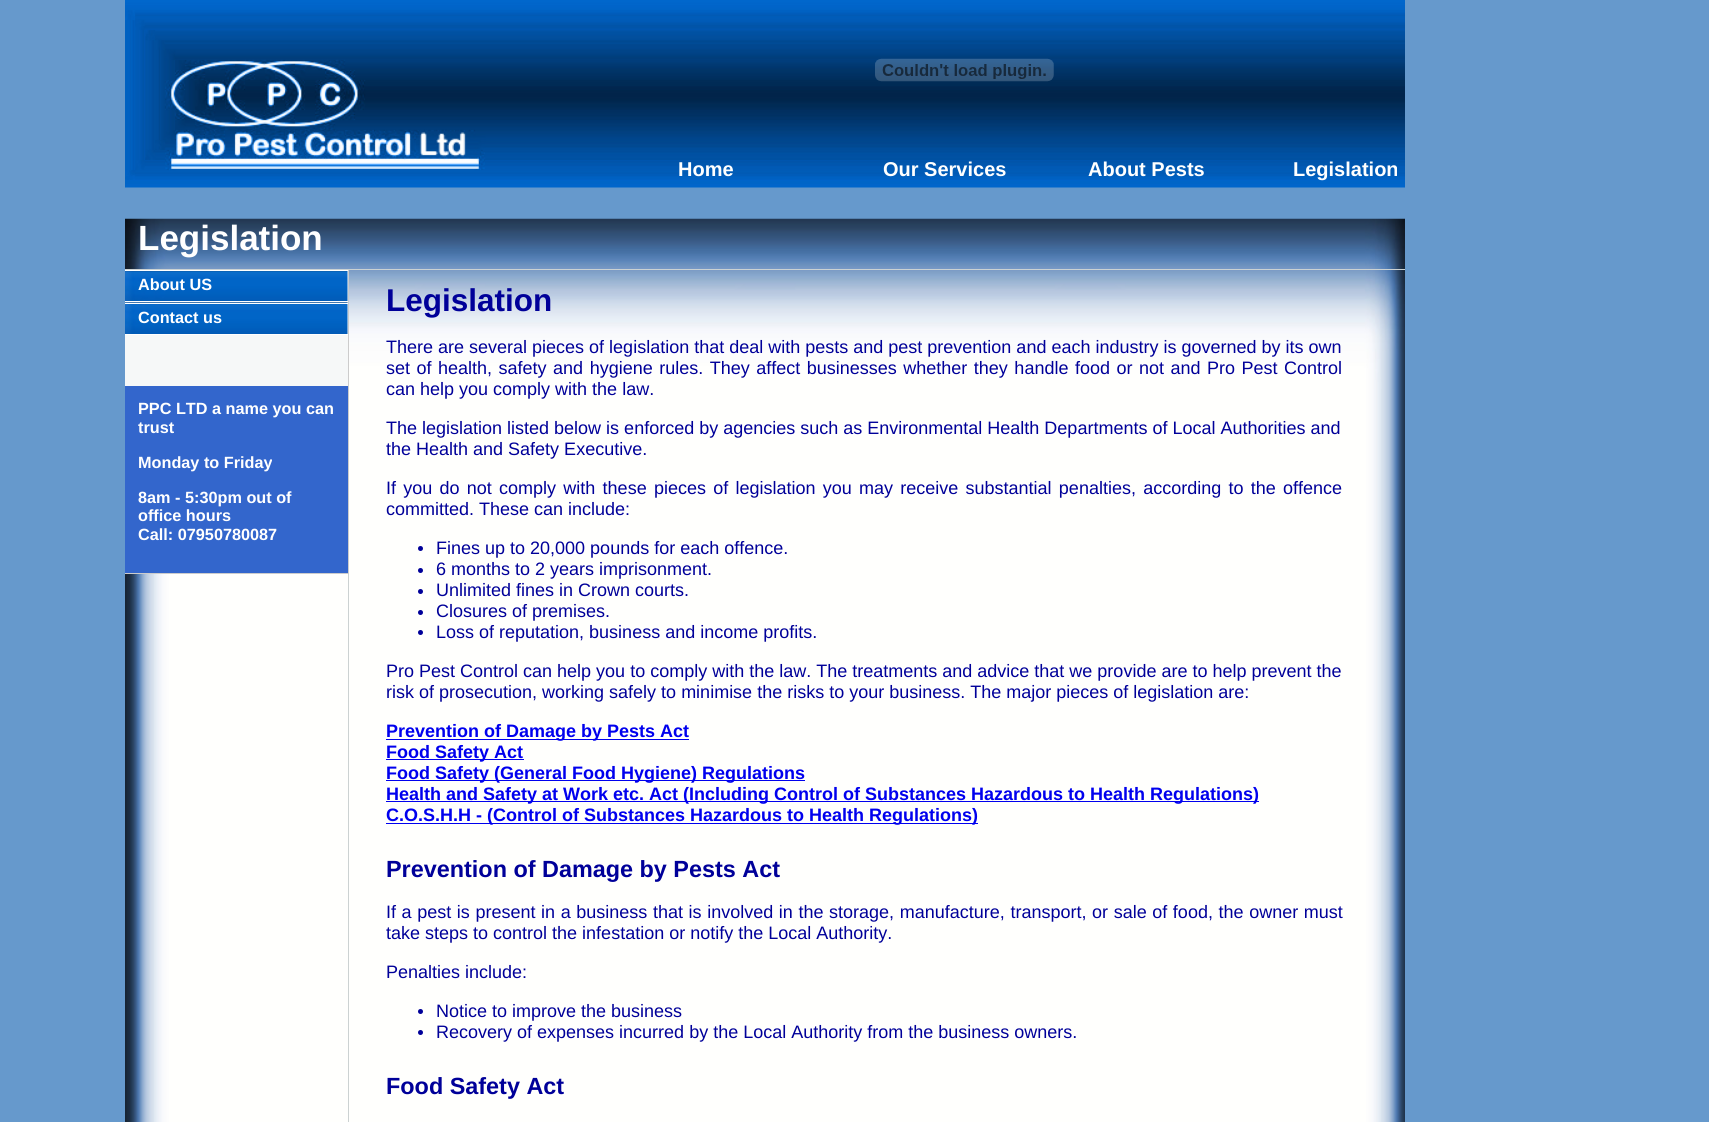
#include <cairo.h>
#include <math.h>
#include <stddef.h>


static void spaced_text(cairo_t *cr, double x, double y, const char *s, double letter, double word) {
    cairo_move_to(cr, x, y);
    while (*s) {
        char ch[5] = {0};
        int n = 0;
        do ch[n++] = *s++; while ((*s & 0xC0) == 0x80);
        cairo_show_text(cr, ch);
        cairo_rel_move_to(cr, letter + word * (*ch == ' '), 0);
    }
}

static void picture(cairo_t *cr, const char *path, double x, double y, double w, double h) {
    cairo_surface_t *image = cairo_image_surface_create_from_png(path);
    cairo_save(cr);
    cairo_set_source_surface(cr, image, x, y);
    cairo_rectangle(cr, x, y, w, h);
    cairo_fill(cr);
    cairo_restore(cr);
    cairo_surface_destroy(image);
}

int main(void) {
    cairo_surface_t *surface = cairo_image_surface_create(CAIRO_FORMAT_RGB24, 1709, 1122);
    cairo_t *cr = cairo_create(surface);
    cairo_font_options_t *options = cairo_font_options_create();
    cairo_font_options_set_hint_metrics(options, CAIRO_HINT_METRICS_OFF);
    cairo_font_options_set_hint_style(options, CAIRO_HINT_STYLE_NONE);
    cairo_set_font_options(cr, options);
    cairo_set_miter_limit(cr, 4);
    cairo_set_source_rgb(cr, 0.4, 0.6, 0.8);
    cairo_paint(cr);
    picture(cr, "img1.png", 125, 0, 1280, 188);
    picture(cr, "img2.png", 875, 58, 179, 24);
    cairo_select_font_face(cr, "Liberation Sans", CAIRO_FONT_SLANT_NORMAL, CAIRO_FONT_WEIGHT_BOLD);
    cairo_set_font_size(cr, 20);
    cairo_set_source_rgb(cr, 1, 1, 1);
    cairo_move_to(cr, 678, 176);
    cairo_show_text(cr, "Home");
    cairo_move_to(cr, 883, 176);
    cairo_show_text(cr, "Our Services");
    cairo_move_to(cr, 1088, 176);
    cairo_show_text(cr, "About Pests");
    cairo_move_to(cr, 1293, 176);
    cairo_show_text(cr, "Legislation");
    picture(cr, "img3.png", 125, 218, 1280, 904);
    cairo_set_source_rgb(cr, 0.8, 0.824, 0.824);
    cairo_rectangle(cr, 125, 269, 1280, 1);
    cairo_fill(cr);
    cairo_set_font_size(cr, 35);
    cairo_set_source_rgb(cr, 1, 1, 1);
    cairo_move_to(cr, 138, 250);
    cairo_show_text(cr, "Legislation");
    cairo_set_source_rgb(cr, 0.961, 0.969, 0.969);
    cairo_rectangle(cr, 125, 271, 223, 115);
    cairo_fill(cr);
    cairo_set_source_rgb(cr, 0.8, 0.8, 0.8);
    cairo_rectangle(cr, 348, 270, 1, 304);
    cairo_fill(cr);
    cairo_rectangle(cr, 125, 573, 224, 1);
    cairo_fill(cr);
    picture(cr, "img4.png", 125, 271, 223, 32);
    cairo_set_source_rgb(cr, 1, 1, 1);
    cairo_rectangle(cr, 125, 270, 223, 1);
    cairo_fill(cr);
    cairo_rectangle(cr, 125, 301, 223, 1);
    cairo_fill(cr);
    cairo_set_font_size(cr, 16.25);
    cairo_move_to(cr, 138, 290);
    cairo_show_text(cr, "About US");
    picture(cr, "img5.png", 125, 302, 223, 32);
    cairo_rectangle(cr, 125, 303, 223, 1);
    cairo_fill(cr);
    cairo_rectangle(cr, 125, 334, 223, 1);
    cairo_fill(cr);
    cairo_move_to(cr, 138, 323);
    cairo_show_text(cr, "Contact us");
    cairo_set_source_rgb(cr, 0.2, 0.4, 0.8);
    cairo_rectangle(cr, 125, 386, 223, 187);
    cairo_fill(cr);
    cairo_set_source_rgb(cr, 1, 1, 1);
    cairo_move_to(cr, 138, 414);
    cairo_show_text(cr, "PPC LTD a name you can");
    cairo_move_to(cr, 138, 433);
    cairo_show_text(cr, "trust");
    cairo_move_to(cr, 138, 468);
    cairo_show_text(cr, "Monday to Friday");
    cairo_move_to(cr, 138, 503);
    cairo_show_text(cr, "8am - 5:30pm out of");
    cairo_move_to(cr, 138, 521);
    cairo_show_text(cr, "office hours");
    cairo_move_to(cr, 138, 540);
    cairo_show_text(cr, "Call: 07950780087");
    cairo_set_source_rgb(cr, 0.8, 0.824, 0.824);
    cairo_rectangle(cr, 348, 574, 1, 548);
    cairo_fill(cr);
    cairo_set_font_size(cr, 31.5);
    cairo_set_source_rgb(cr, 0, 0, 0.6);
    cairo_move_to(cr, 386, 311);
    cairo_show_text(cr, "Legislation");
    cairo_select_font_face(cr, "Liberation Sans", CAIRO_FONT_SLANT_NORMAL, CAIRO_FONT_WEIGHT_NORMAL);
    cairo_set_font_size(cr, 18);
    cairo_move_to(cr, 386, 353);
    cairo_show_text(cr, "There are several pieces of legislation that deal with pests and pest prevention and each industry is governed by its own");
    spaced_text(cr, 386, 374, "set of health, safety and hygiene rules. They affect businesses whether they handle food or not and Pro Pest Control", 0, 1.5);
    cairo_move_to(cr, 386, 395);
    cairo_show_text(cr, "can help you comply with the law.");
    cairo_move_to(cr, 386, 434);
    cairo_show_text(cr, "The legislation listed below is enforced by agencies such as Environmental Health Departments of Local Authorities and");
    cairo_move_to(cr, 386, 455);
    cairo_show_text(cr, "the Health and Safety Executive.");
    spaced_text(cr, 386, 494, "If you do not comply with these pieces of legislation you may receive substantial penalties, according to the offence", 0, 2.25);
    cairo_move_to(cr, 386, 515);
    cairo_show_text(cr, "committed. These can include:");
    cairo_new_path(cr);
    cairo_arc(cr, 420.5, 548.5, 2.5, 0, 2 * M_PI);
    cairo_fill(cr);
    cairo_move_to(cr, 436, 554);
    cairo_show_text(cr, "Fines up to 20,000 pounds for each offence.");
    cairo_new_path(cr);
    cairo_arc(cr, 420.5, 570.5, 2.5, 0, 2 * M_PI);
    cairo_fill(cr);
    cairo_move_to(cr, 436, 575);
    cairo_show_text(cr, "6 months to 2 years imprisonment.");
    cairo_new_path(cr);
    cairo_arc(cr, 420.5, 591.5, 2.5, 0, 2 * M_PI);
    cairo_fill(cr);
    cairo_move_to(cr, 436, 596);
    cairo_show_text(cr, "Unlimited fines in Crown courts.");
    cairo_new_path(cr);
    cairo_arc(cr, 420.5, 612.5, 2.5, 0, 2 * M_PI);
    cairo_fill(cr);
    cairo_move_to(cr, 436, 617);
    cairo_show_text(cr, "Closures of premises.");
    cairo_new_path(cr);
    cairo_arc(cr, 420.5, 632.5, 2.5, 0, 2 * M_PI);
    cairo_fill(cr);
    cairo_move_to(cr, 436, 638);
    cairo_show_text(cr, "Loss of reputation, business and income profits.");
    cairo_move_to(cr, 386, 677);
    cairo_show_text(cr, "Pro Pest Control can help you to comply with the law. The treatments and advice that we provide are to help prevent the");
    cairo_move_to(cr, 386, 698);
    cairo_show_text(cr, "risk of prosecution, working safely to minimise the risks to your business. The major pieces of legislation are:");
    cairo_set_source_rgb(cr, 0, 0, 0.933);
    cairo_rectangle(cr, 386, 739, 303, 1);
    cairo_fill(cr);
    cairo_select_font_face(cr, "Liberation Sans", CAIRO_FONT_SLANT_NORMAL, CAIRO_FONT_WEIGHT_BOLD);
    cairo_move_to(cr, 386, 737);
    cairo_show_text(cr, "Prevention of Damage by Pests Act");
    cairo_rectangle(cr, 386, 759, 138, 1);
    cairo_fill(cr);
    cairo_move_to(cr, 386, 758);
    cairo_show_text(cr, "Food Safety Act");
    cairo_rectangle(cr, 386, 780, 419, 1);
    cairo_fill(cr);
    cairo_move_to(cr, 386, 779);
    cairo_show_text(cr, "Food Safety (General Food Hygiene) Regulations");
    cairo_rectangle(cr, 386, 801, 873, 1);
    cairo_fill(cr);
    cairo_move_to(cr, 386, 800);
    cairo_show_text(cr, "Health and Safety at Work etc. Act (Including Control of Substances Hazardous to Health Regulations)");
    cairo_rectangle(cr, 386, 823, 592, 1);
    cairo_fill(cr);
    cairo_move_to(cr, 386, 821);
    cairo_show_text(cr, "C.O.S.H.H - (Control of Substances Hazardous to Health Regulations)");
    cairo_set_font_size(cr, 23.4);
    cairo_set_source_rgb(cr, 0, 0, 0.6);
    cairo_move_to(cr, 386, 877);
    cairo_show_text(cr, "Prevention of Damage by Pests Act");
    cairo_select_font_face(cr, "Liberation Sans", CAIRO_FONT_SLANT_NORMAL, CAIRO_FONT_WEIGHT_NORMAL);
    cairo_set_font_size(cr, 18);
    spaced_text(cr, 386, 918, "If a pest is present in a business that is involved in the storage, manufacture, transport, or sale of food, the owner must", 0, 0.6);
    cairo_move_to(cr, 386, 939);
    cairo_show_text(cr, "take steps to control the infestation or notify the Local Authority.");
    cairo_move_to(cr, 386, 978);
    cairo_show_text(cr, "Penalties include:");
    cairo_new_path(cr);
    cairo_arc(cr, 420.5, 1011.5, 2.5, 0, 2 * M_PI);
    cairo_fill(cr);
    cairo_move_to(cr, 436, 1017);
    cairo_show_text(cr, "Notice to improve the business");
    cairo_new_path(cr);
    cairo_arc(cr, 420.5, 1032.5, 2.5, 0, 2 * M_PI);
    cairo_fill(cr);
    cairo_move_to(cr, 436, 1038);
    cairo_show_text(cr, "Recovery of expenses incurred by the Local Authority from the business owners.");
    cairo_select_font_face(cr, "Liberation Sans", CAIRO_FONT_SLANT_NORMAL, CAIRO_FONT_WEIGHT_BOLD);
    cairo_set_font_size(cr, 23.4);
    cairo_move_to(cr, 386, 1094);
    cairo_show_text(cr, "Food Safety Act");
    cairo_surface_write_to_png(surface, "page.png");
    cairo_font_options_destroy(options);
    cairo_destroy(cr);
    cairo_surface_destroy(surface);
    return 0;
}
